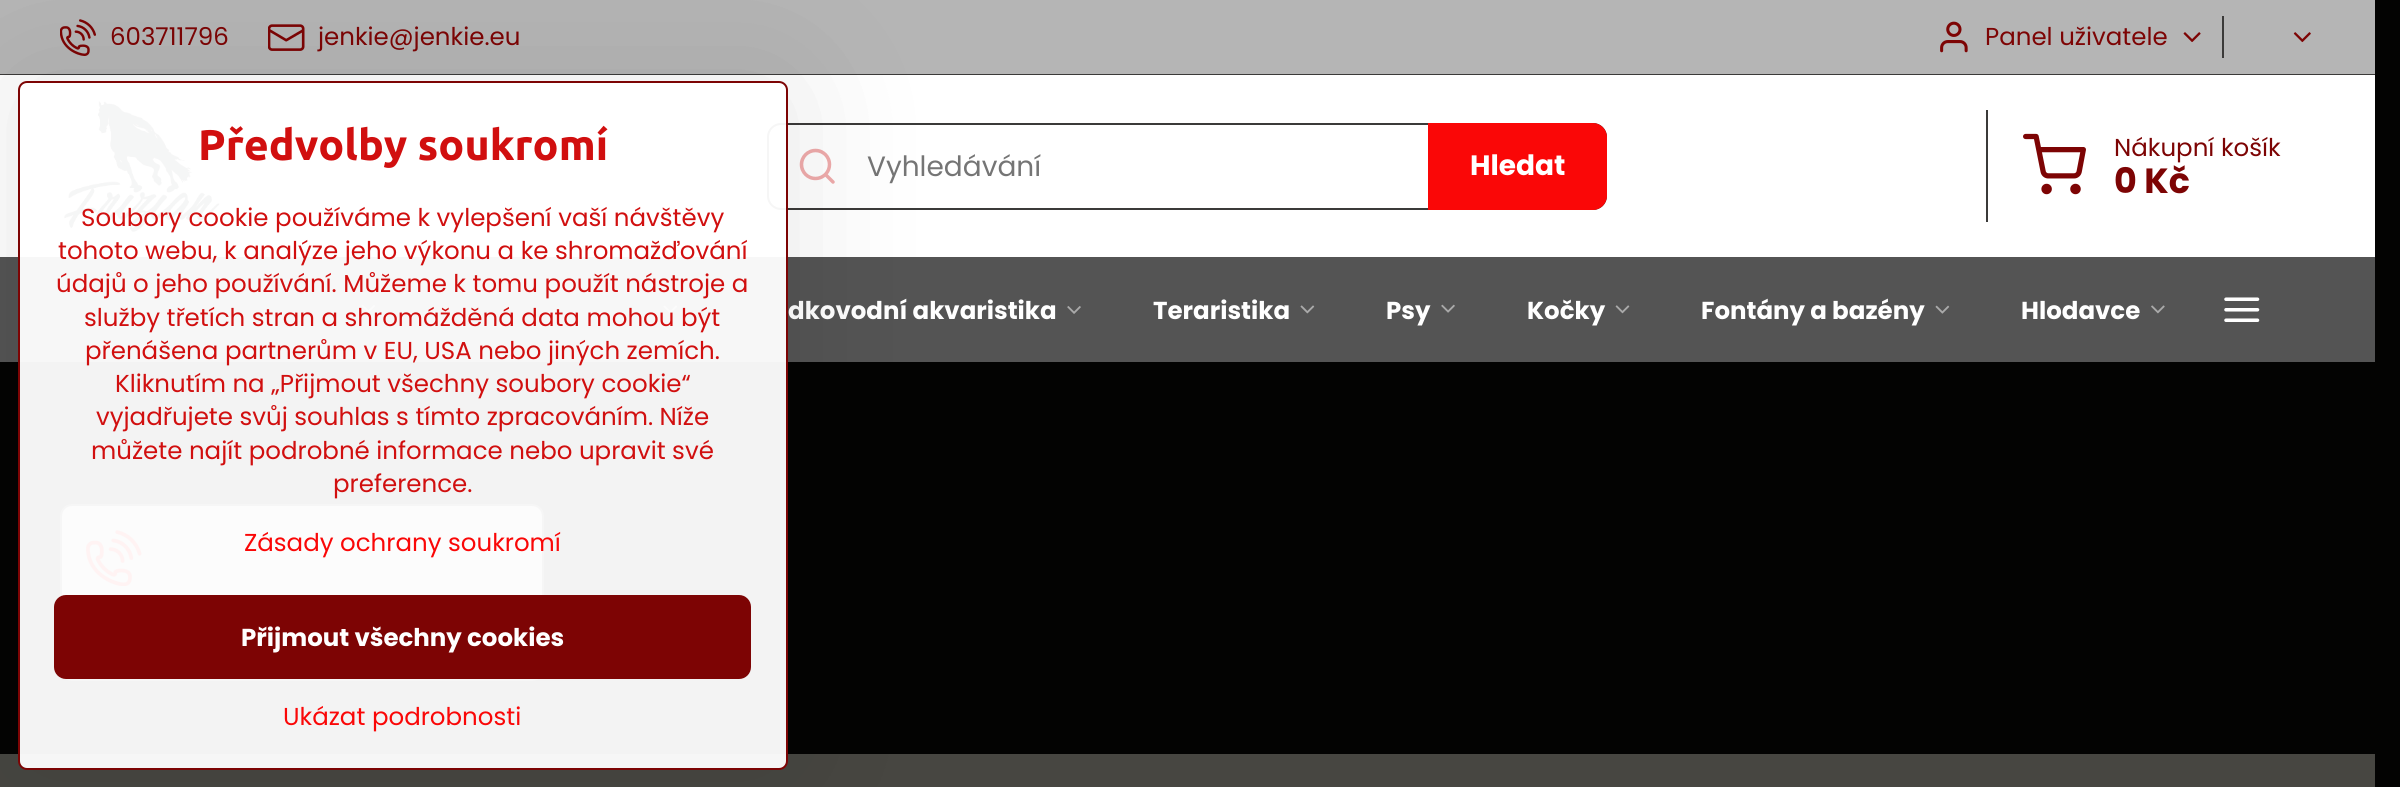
#include <cairo.h>
#include <math.h>
#include <stddef.h>


static void round_rect(cairo_t *cr, double x, double y, double w, double h, double r) {
    cairo_new_sub_path(cr);
    cairo_arc(cr, x + w - r, y + h - r, r, 0, M_PI / 2);
    cairo_arc(cr, x + r, y + h - r, r, M_PI / 2, M_PI);
    cairo_arc(cr, x + r, y + r, r, M_PI, 1.5 * M_PI);
    cairo_arc(cr, x + w - r, y + r, r, 1.5 * M_PI, 2 * M_PI);
    cairo_close_path(cr);
}

static void shadow(cairo_t *cr, double x, double y, double w, double h, double r, double blur, double alpha) {
    cairo_push_group_with_content(cr, CAIRO_CONTENT_ALPHA);
    cairo_set_operator(cr, CAIRO_OPERATOR_SOURCE);
    for (int i = 15; i >= -15 && fmin(w, h) + blur * i / 3 > 0; i -= 2) {
        double e = blur * i / 6;
        cairo_set_source_rgba(cr, 0, 0, 0, alpha * erfc((i - 1) / 8.5) / 2);
        round_rect(cr, x - e, y - e, w + 2 * e, h + 2 * e, fmax(0, fmin(r + e + blur * .6, fmin(w, h) / 2 + e)));
        cairo_fill(cr);
    }
    cairo_pattern_t *soft = cairo_pop_group(cr);
    cairo_mask(cr, soft);
    cairo_pattern_destroy(soft);
}

static void picture(cairo_t *cr, const char *path, double x, double y, double w, double h) {
    cairo_surface_t *image = cairo_image_surface_create_from_png(path);
    cairo_save(cr);
    cairo_set_source_surface(cr, image, x, y);
    cairo_rectangle(cr, x, y, w, h);
    cairo_fill(cr);
    cairo_restore(cr);
    cairo_surface_destroy(image);
}

int main(void) {
    cairo_surface_t *surface = cairo_image_surface_create(CAIRO_FORMAT_RGB24, 2400, 787);
    cairo_t *cr = cairo_create(surface);
    cairo_font_options_t *options = cairo_font_options_create();
    cairo_font_options_set_hint_metrics(options, CAIRO_HINT_METRICS_OFF);
    cairo_font_options_set_hint_style(options, CAIRO_HINT_STYLE_NONE);
    cairo_set_font_options(cr, options);
    cairo_set_miter_limit(cr, 4);
    cairo_set_source_rgb(cr, 0.012, 0.012, 0.008);
    cairo_paint(cr);
    cairo_set_source_rgb(cr, 0.71, 0.71, 0.71);
    cairo_rectangle(cr, 0, 0, 2375, 74);
    cairo_fill(cr);
    cairo_set_source_rgb(cr, 0.231, 0.227, 0.224);
    cairo_rectangle(cr, 0, 74, 2375, 1);
    cairo_fill(cr);
    picture(cr, "img1.png", 60, 19, 36, 37);
    cairo_select_font_face(cr, "Poppins", CAIRO_FONT_SLANT_NORMAL, CAIRO_FONT_WEIGHT_NORMAL);
    cairo_set_font_size(cr, 24.5);
    cairo_set_source_rgb(cr, 0.49, 0.016, 0.016);
    cairo_move_to(cr, 110, 45);
    cairo_show_text(cr, "603711796");
    picture(cr, "img2.png", 268, 24, 37, 27);
    cairo_move_to(cr, 318, 45);
    cairo_show_text(cr, "jenkie@jenkie.eu");
    cairo_set_source_rgb(cr, 0.231, 0.227, 0.224);
    cairo_rectangle(cr, 2222, 16, 2, 42);
    cairo_fill(cr);
    picture(cr, "img3.png", 1940, 21, 28, 32);
    cairo_set_source_rgb(cr, 0.49, 0.016, 0.016);
    cairo_move_to(cr, 1985, 45);
    cairo_show_text(cr, "Panel uživatele");
    picture(cr, "img4.png", 2183, 32, 18, 10);
    picture(cr, "img5.png", 2293, 32, 18, 11);
    cairo_set_source_rgb(cr, 1, 1, 1);
    cairo_rectangle(cr, 0, 75, 2375, 182);
    cairo_fill(cr);
    picture(cr, "img6.png", 64, 100, 156, 133);
    round_rect(cr, 768, 124, 838, 85, 13);
    cairo_set_source_rgb(cr, 0.231, 0.227, 0.224);
    cairo_stroke(cr);
    picture(cr, "img7.png", 799, 148, 36, 36);
    cairo_set_font_size(cr, 28);
    cairo_set_source_rgb(cr, 0.459, 0.459, 0.459);
    cairo_move_to(cr, 867, 176);
    cairo_show_text(cr, "Vyhledávání");
    cairo_set_source_rgb(cr, 0.98, 0.031, 0.031);
    cairo_new_path(cr);
    cairo_move_to(cr, 1428, 123);
    cairo_line_to(cr, 1593, 123);
    cairo_curve_to(cr, 1600.5, 123, 1607, 129.5, 1607, 137);
    cairo_line_to(cr, 1607, 196);
    cairo_curve_to(cr, 1607, 203.5, 1600.5, 210, 1593, 210);
    cairo_line_to(cr, 1428, 210);
    cairo_close_path(cr);
    cairo_fill(cr);
    cairo_select_font_face(cr, "Poppins", CAIRO_FONT_SLANT_NORMAL, CAIRO_FONT_WEIGHT_BOLD);
    cairo_set_source_rgb(cr, 1, 1, 1);
    cairo_move_to(cr, 1470, 175);
    cairo_show_text(cr, "Hledat");
    cairo_set_source_rgb(cr, 0.231, 0.227, 0.224);
    cairo_rectangle(cr, 1986, 110, 2, 112);
    cairo_fill(cr);
    picture(cr, "img8.png", 2023, 133, 63, 62);
    cairo_select_font_face(cr, "Poppins", CAIRO_FONT_SLANT_NORMAL, CAIRO_FONT_WEIGHT_NORMAL);
    cairo_set_font_size(cr, 24.5);
    cairo_set_source_rgb(cr, 0.49, 0.016, 0.016);
    cairo_move_to(cr, 2114, 156);
    cairo_show_text(cr, "Nákupní košík");
    cairo_select_font_face(cr, "Poppins", CAIRO_FONT_SLANT_NORMAL, CAIRO_FONT_WEIGHT_BOLD);
    cairo_set_font_size(cr, 35);
    cairo_move_to(cr, 2114, 193);
    cairo_show_text(cr, "0 Kč");
    cairo_set_source_rgb(cr, 0.329, 0.329, 0.329);
    cairo_rectangle(cr, 0, 257, 2375, 105);
    cairo_fill(cr);
    picture(cr, "img9.png", 361, 304, 15, 9);
    picture(cr, "img10.png", 663, 305, 14, 9);
    cairo_set_font_size(cr, 24.5);
    cairo_set_source_rgb(cr, 1, 1, 1);
    cairo_move_to(cr, 788, 319);
    cairo_show_text(cr, "dkovodní akvaristika");
    picture(cr, "img11.png", 1067, 306, 14, 8);
    cairo_move_to(cr, 1153, 319);
    cairo_show_text(cr, "Teraristika");
    picture(cr, "img12.png", 1300, 305, 15, 9);
    cairo_move_to(cr, 1386, 319);
    cairo_show_text(cr, "Psy");
    picture(cr, "img13.png", 1441, 304, 14, 9);
    cairo_move_to(cr, 1527, 319);
    cairo_show_text(cr, "Kočky");
    picture(cr, "img14.png", 1615, 305, 15, 9);
    cairo_move_to(cr, 1701, 319);
    cairo_show_text(cr, "Fontány a bazény");
    picture(cr, "img15.png", 1935, 305, 15, 9);
    cairo_move_to(cr, 2021, 319);
    cairo_show_text(cr, "Hlodavce");
    picture(cr, "img16.png", 2151, 305, 14, 9);
    picture(cr, "img17.png", 2224, 297, 36, 25);
    cairo_set_source_rgb(cr, 0.71, 0.71, 0.71);
    round_rect(cr, 61, 505, 482, 175, 11);
    cairo_fill_preserve(cr);
    cairo_set_source_rgb(cr, 0.231, 0.227, 0.224);
    cairo_stroke(cr);
    picture(cr, "img18.png", 86, 530, 56, 56);
    cairo_set_source_rgb(cr, 0.278, 0.275, 0.255);
    cairo_rectangle(cr, 0, 754, 2375, 33);
    cairo_fill(cr);
    cairo_save(cr);
    cairo_set_fill_rule(cr, CAIRO_FILL_RULE_EVEN_ODD);
    cairo_new_path(cr);
    cairo_move_to(cr, 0, 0);
    cairo_line_to(cr, 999, 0);
    cairo_line_to(cr, 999, 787);
    cairo_line_to(cr, 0, 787);
    cairo_close_path(cr);
    cairo_move_to(cr, 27, 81);
    cairo_line_to(cr, 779, 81);
    cairo_curve_to(cr, 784, 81, 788, 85, 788, 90);
    cairo_line_to(cr, 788, 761);
    cairo_curve_to(cr, 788, 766, 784, 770, 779, 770);
    cairo_line_to(cr, 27, 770);
    cairo_curve_to(cr, 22, 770, 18, 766, 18, 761);
    cairo_line_to(cr, 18, 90);
    cairo_curve_to(cr, 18, 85, 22, 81, 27, 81);
    cairo_close_path(cr);
    cairo_clip(cr);
    cairo_set_source_rgb(cr, 0, 0, 0);
    shadow(cr, 18, 81, 770, 689, 9, 70, 0.1);
    cairo_restore(cr);
    cairo_set_source_rgba(cr, 1, 1, 1, 0.95);
    round_rect(cr, 19, 82, 768, 687, 8);
    cairo_fill_preserve(cr);
    cairo_set_source_rgb(cr, 0.49, 0.016, 0.016);
    cairo_stroke(cr);
    cairo_select_font_face(cr, "Ubuntu", CAIRO_FONT_SLANT_NORMAL, CAIRO_FONT_WEIGHT_BOLD);
    cairo_set_font_size(cr, 42.9);
    cairo_set_source_rgb(cr, 0.82, 0.059, 0.059);
    cairo_move_to(cr, 198, 160);
    cairo_show_text(cr, "Předvolby soukromí");
    cairo_select_font_face(cr, "Poppins", CAIRO_FONT_SLANT_NORMAL, CAIRO_FONT_WEIGHT_NORMAL);
    cairo_set_font_size(cr, 24.5);
    cairo_move_to(cr, 81, 226);
    cairo_show_text(cr, "Soubory cookie používáme k vylepšení vaší návštěvy");
    cairo_move_to(cr, 58, 259);
    cairo_show_text(cr, "tohoto webu, k analýze jeho výkonu a ke shromažďování");
    cairo_move_to(cr, 56, 292);
    cairo_show_text(cr, "údajů o jeho používání. Můžeme k tomu použít nástroje a");
    cairo_move_to(cr, 84, 326);
    cairo_show_text(cr, "služby třetích stran a shromážděná data mohou být");
    cairo_move_to(cr, 85, 359);
    cairo_show_text(cr, "přenášena partnerům v EU, USA nebo jiných zemích.");
    cairo_move_to(cr, 115, 392);
    cairo_show_text(cr, "Kliknutím na „Přijmout všechny soubory cookie“");
    cairo_move_to(cr, 96, 425);
    cairo_show_text(cr, "vyjadřujete svůj souhlas s tímto zpracováním. Níže");
    cairo_move_to(cr, 91, 459);
    cairo_show_text(cr, "můžete najít podrobné informace nebo upravit své");
    cairo_move_to(cr, 333, 492);
    cairo_show_text(cr, "preference.");
    cairo_set_source_rgb(cr, 0.98, 0.031, 0.031);
    cairo_move_to(cr, 244, 551);
    cairo_show_text(cr, "Zásady ochrany soukromí");
    cairo_set_source_rgb(cr, 0.49, 0.016, 0.016);
    round_rect(cr, 54, 595, 697, 84, 12);
    cairo_fill(cr);
    cairo_select_font_face(cr, "Poppins", CAIRO_FONT_SLANT_NORMAL, CAIRO_FONT_WEIGHT_BOLD);
    cairo_set_source_rgb(cr, 1, 1, 1);
    cairo_move_to(cr, 241, 646);
    cairo_show_text(cr, "Přijmout všechny cookies");
    cairo_select_font_face(cr, "Poppins", CAIRO_FONT_SLANT_NORMAL, CAIRO_FONT_WEIGHT_NORMAL);
    cairo_set_source_rgb(cr, 0.98, 0.031, 0.031);
    cairo_move_to(cr, 283, 725);
    cairo_show_text(cr, "Ukázat podrobnosti");
    cairo_surface_write_to_png(surface, "page.png");
    cairo_font_options_destroy(options);
    cairo_destroy(cr);
    cairo_surface_destroy(surface);
    return 0;
}
